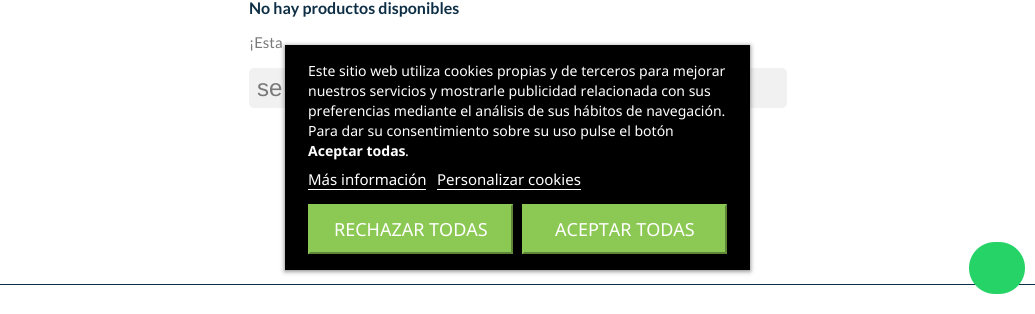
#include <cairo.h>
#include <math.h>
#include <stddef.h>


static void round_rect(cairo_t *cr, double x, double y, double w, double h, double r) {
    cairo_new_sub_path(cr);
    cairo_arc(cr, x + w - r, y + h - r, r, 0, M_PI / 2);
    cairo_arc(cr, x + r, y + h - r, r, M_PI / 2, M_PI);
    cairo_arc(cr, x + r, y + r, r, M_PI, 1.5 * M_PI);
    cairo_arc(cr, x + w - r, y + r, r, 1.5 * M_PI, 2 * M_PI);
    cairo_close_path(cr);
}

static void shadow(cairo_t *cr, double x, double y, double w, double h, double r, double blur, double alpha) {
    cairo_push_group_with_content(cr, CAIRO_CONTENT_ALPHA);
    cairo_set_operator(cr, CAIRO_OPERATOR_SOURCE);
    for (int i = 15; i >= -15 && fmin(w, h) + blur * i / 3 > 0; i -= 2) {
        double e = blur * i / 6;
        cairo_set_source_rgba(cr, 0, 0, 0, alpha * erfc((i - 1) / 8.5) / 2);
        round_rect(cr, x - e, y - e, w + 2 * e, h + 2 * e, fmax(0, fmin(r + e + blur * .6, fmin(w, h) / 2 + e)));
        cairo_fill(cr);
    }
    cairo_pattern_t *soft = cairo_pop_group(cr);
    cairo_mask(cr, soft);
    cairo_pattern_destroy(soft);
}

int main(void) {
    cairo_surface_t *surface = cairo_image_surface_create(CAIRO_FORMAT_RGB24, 1035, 314);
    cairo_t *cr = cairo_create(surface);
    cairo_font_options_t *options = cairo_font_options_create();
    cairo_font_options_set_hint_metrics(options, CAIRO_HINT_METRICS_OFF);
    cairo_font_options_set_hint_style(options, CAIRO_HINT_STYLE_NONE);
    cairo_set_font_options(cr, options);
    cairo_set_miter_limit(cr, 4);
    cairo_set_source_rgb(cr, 1, 1, 1);
    cairo_paint(cr);
    cairo_select_font_face(cr, "Lato", CAIRO_FONT_SLANT_NORMAL, CAIRO_FONT_WEIGHT_BOLD);
    cairo_set_font_size(cr, 16);
    cairo_set_source_rgb(cr, 0.051, 0.18, 0.271);
    cairo_move_to(cr, 249, 14);
    cairo_show_text(cr, "No hay productos disponibles");
    cairo_select_font_face(cr, "Lato", CAIRO_FONT_SLANT_NORMAL, CAIRO_FONT_WEIGHT_NORMAL);
    cairo_set_font_size(cr, 15);
    cairo_set_source_rgb(cr, 0.478, 0.478, 0.478);
    cairo_move_to(cr, 249, 48);
    cairo_show_text(cr, "¡Esta");
    cairo_set_source_rgb(cr, 0.945, 0.945, 0.945);
    round_rect(cr, 249, 68, 538, 40, 5);
    cairo_fill(cr);
    cairo_select_font_face(cr, "Liberation Sans", CAIRO_FONT_SLANT_NORMAL, CAIRO_FONT_WEIGHT_NORMAL);
    cairo_set_font_size(cr, 24);
    cairo_set_source_rgb(cr, 0.478, 0.478, 0.478);
    cairo_move_to(cr, 257, 96);
    cairo_show_text(cr, "se");
    cairo_set_source_rgb(cr, 0.467, 0.467, 0.467);
    shadow(cr, 285, 46, 465, 225, 0, 2.5, 1);
    cairo_set_source_rgb(cr, 0, 0, 0);
    cairo_rectangle(cr, 285, 45, 465, 225);
    cairo_fill(cr);
    cairo_select_font_face(cr, "Noto Sans", CAIRO_FONT_SLANT_NORMAL, CAIRO_FONT_WEIGHT_NORMAL);
    cairo_set_font_size(cr, 14);
    cairo_set_source_rgb(cr, 1, 1, 1);
    cairo_move_to(cr, 308, 76);
    cairo_show_text(cr, "Este sitio web utiliza cookies propias y de terceros para mejorar");
    cairo_move_to(cr, 308, 96);
    cairo_show_text(cr, "nuestros servicios y mostrarle publicidad relacionada con sus");
    cairo_move_to(cr, 308, 116);
    cairo_show_text(cr, "preferencias mediante el análisis de sus hábitos de navegación.");
    cairo_move_to(cr, 308, 136);
    cairo_show_text(cr, "Para dar su consentimiento sobre su uso pulse el botón");
    cairo_select_font_face(cr, "Noto Sans", CAIRO_FONT_SLANT_NORMAL, CAIRO_FONT_WEIGHT_BOLD);
    cairo_move_to(cr, 308, 156);
    cairo_show_text(cr, "Aceptar todas");
    cairo_select_font_face(cr, "Noto Sans", CAIRO_FONT_SLANT_NORMAL, CAIRO_FONT_WEIGHT_NORMAL);
    cairo_move_to(cr, 405, 156);
    cairo_show_text(cr, ".");
    cairo_set_font_size(cr, 15);
    cairo_move_to(cr, 308, 185);
    cairo_show_text(cr, "Más información");
    cairo_rectangle(cr, 308, 189, 118, 1);
    cairo_fill(cr);
    cairo_move_to(cr, 437, 185);
    cairo_show_text(cr, "Personalizar cookies");
    cairo_rectangle(cr, 437, 189, 144, 1);
    cairo_fill(cr);
    cairo_set_source_rgb(cr, 0.545, 0.788, 0.329);
    cairo_rectangle(cr, 308, 204, 205, 50);
    cairo_fill(cr);
    cairo_set_source_rgb(cr, 0.365, 0.525, 0.22);
    cairo_new_path(cr);
    cairo_move_to(cr, 513, 204);
    cairo_line_to(cr, 513, 254);
    cairo_line_to(cr, 511, 252);
    cairo_line_to(cr, 511, 206);
    cairo_close_path(cr);
    cairo_fill(cr);
    cairo_new_path(cr);
    cairo_move_to(cr, 513, 254);
    cairo_line_to(cr, 308, 254);
    cairo_line_to(cr, 310, 252);
    cairo_line_to(cr, 511, 252);
    cairo_close_path(cr);
    cairo_fill(cr);
    cairo_set_source_rgb(cr, 0.545, 0.788, 0.329);
    cairo_new_path(cr);
    cairo_move_to(cr, 308, 254);
    cairo_line_to(cr, 308, 204);
    cairo_line_to(cr, 310, 206);
    cairo_line_to(cr, 310, 252);
    cairo_close_path(cr);
    cairo_fill(cr);
    cairo_set_font_size(cr, 18);
    cairo_set_source_rgb(cr, 1, 1, 1);
    cairo_move_to(cr, 334, 236);
    cairo_show_text(cr, "RECHAZAR TODAS");
    cairo_set_source_rgb(cr, 0.545, 0.788, 0.329);
    cairo_rectangle(cr, 522, 204, 205, 50);
    cairo_fill(cr);
    cairo_set_source_rgb(cr, 0.365, 0.525, 0.22);
    cairo_new_path(cr);
    cairo_move_to(cr, 727, 204);
    cairo_line_to(cr, 727, 254);
    cairo_line_to(cr, 725, 252);
    cairo_line_to(cr, 725, 206);
    cairo_close_path(cr);
    cairo_fill(cr);
    cairo_new_path(cr);
    cairo_move_to(cr, 727, 254);
    cairo_line_to(cr, 522, 254);
    cairo_line_to(cr, 524, 252);
    cairo_line_to(cr, 725, 252);
    cairo_close_path(cr);
    cairo_fill(cr);
    cairo_set_source_rgb(cr, 0.545, 0.788, 0.329);
    cairo_new_path(cr);
    cairo_move_to(cr, 522, 254);
    cairo_line_to(cr, 522, 204);
    cairo_line_to(cr, 524, 206);
    cairo_line_to(cr, 524, 252);
    cairo_close_path(cr);
    cairo_fill(cr);
    cairo_set_source_rgb(cr, 1, 1, 1);
    cairo_move_to(cr, 555, 236);
    cairo_show_text(cr, "ACEPTAR TODAS");
    cairo_set_source_rgb(cr, 0.051, 0.18, 0.271);
    cairo_rectangle(cr, 0, 284, 1035, 1);
    cairo_fill(cr);
    cairo_set_source_rgb(cr, 0.145, 0.827, 0.4);
    round_rect(cr, 969, 242, 56, 52, 26);
    cairo_fill(cr);
    cairo_surface_write_to_png(surface, "page.png");
    cairo_font_options_destroy(options);
    cairo_destroy(cr);
    cairo_surface_destroy(surface);
    return 0;
}
